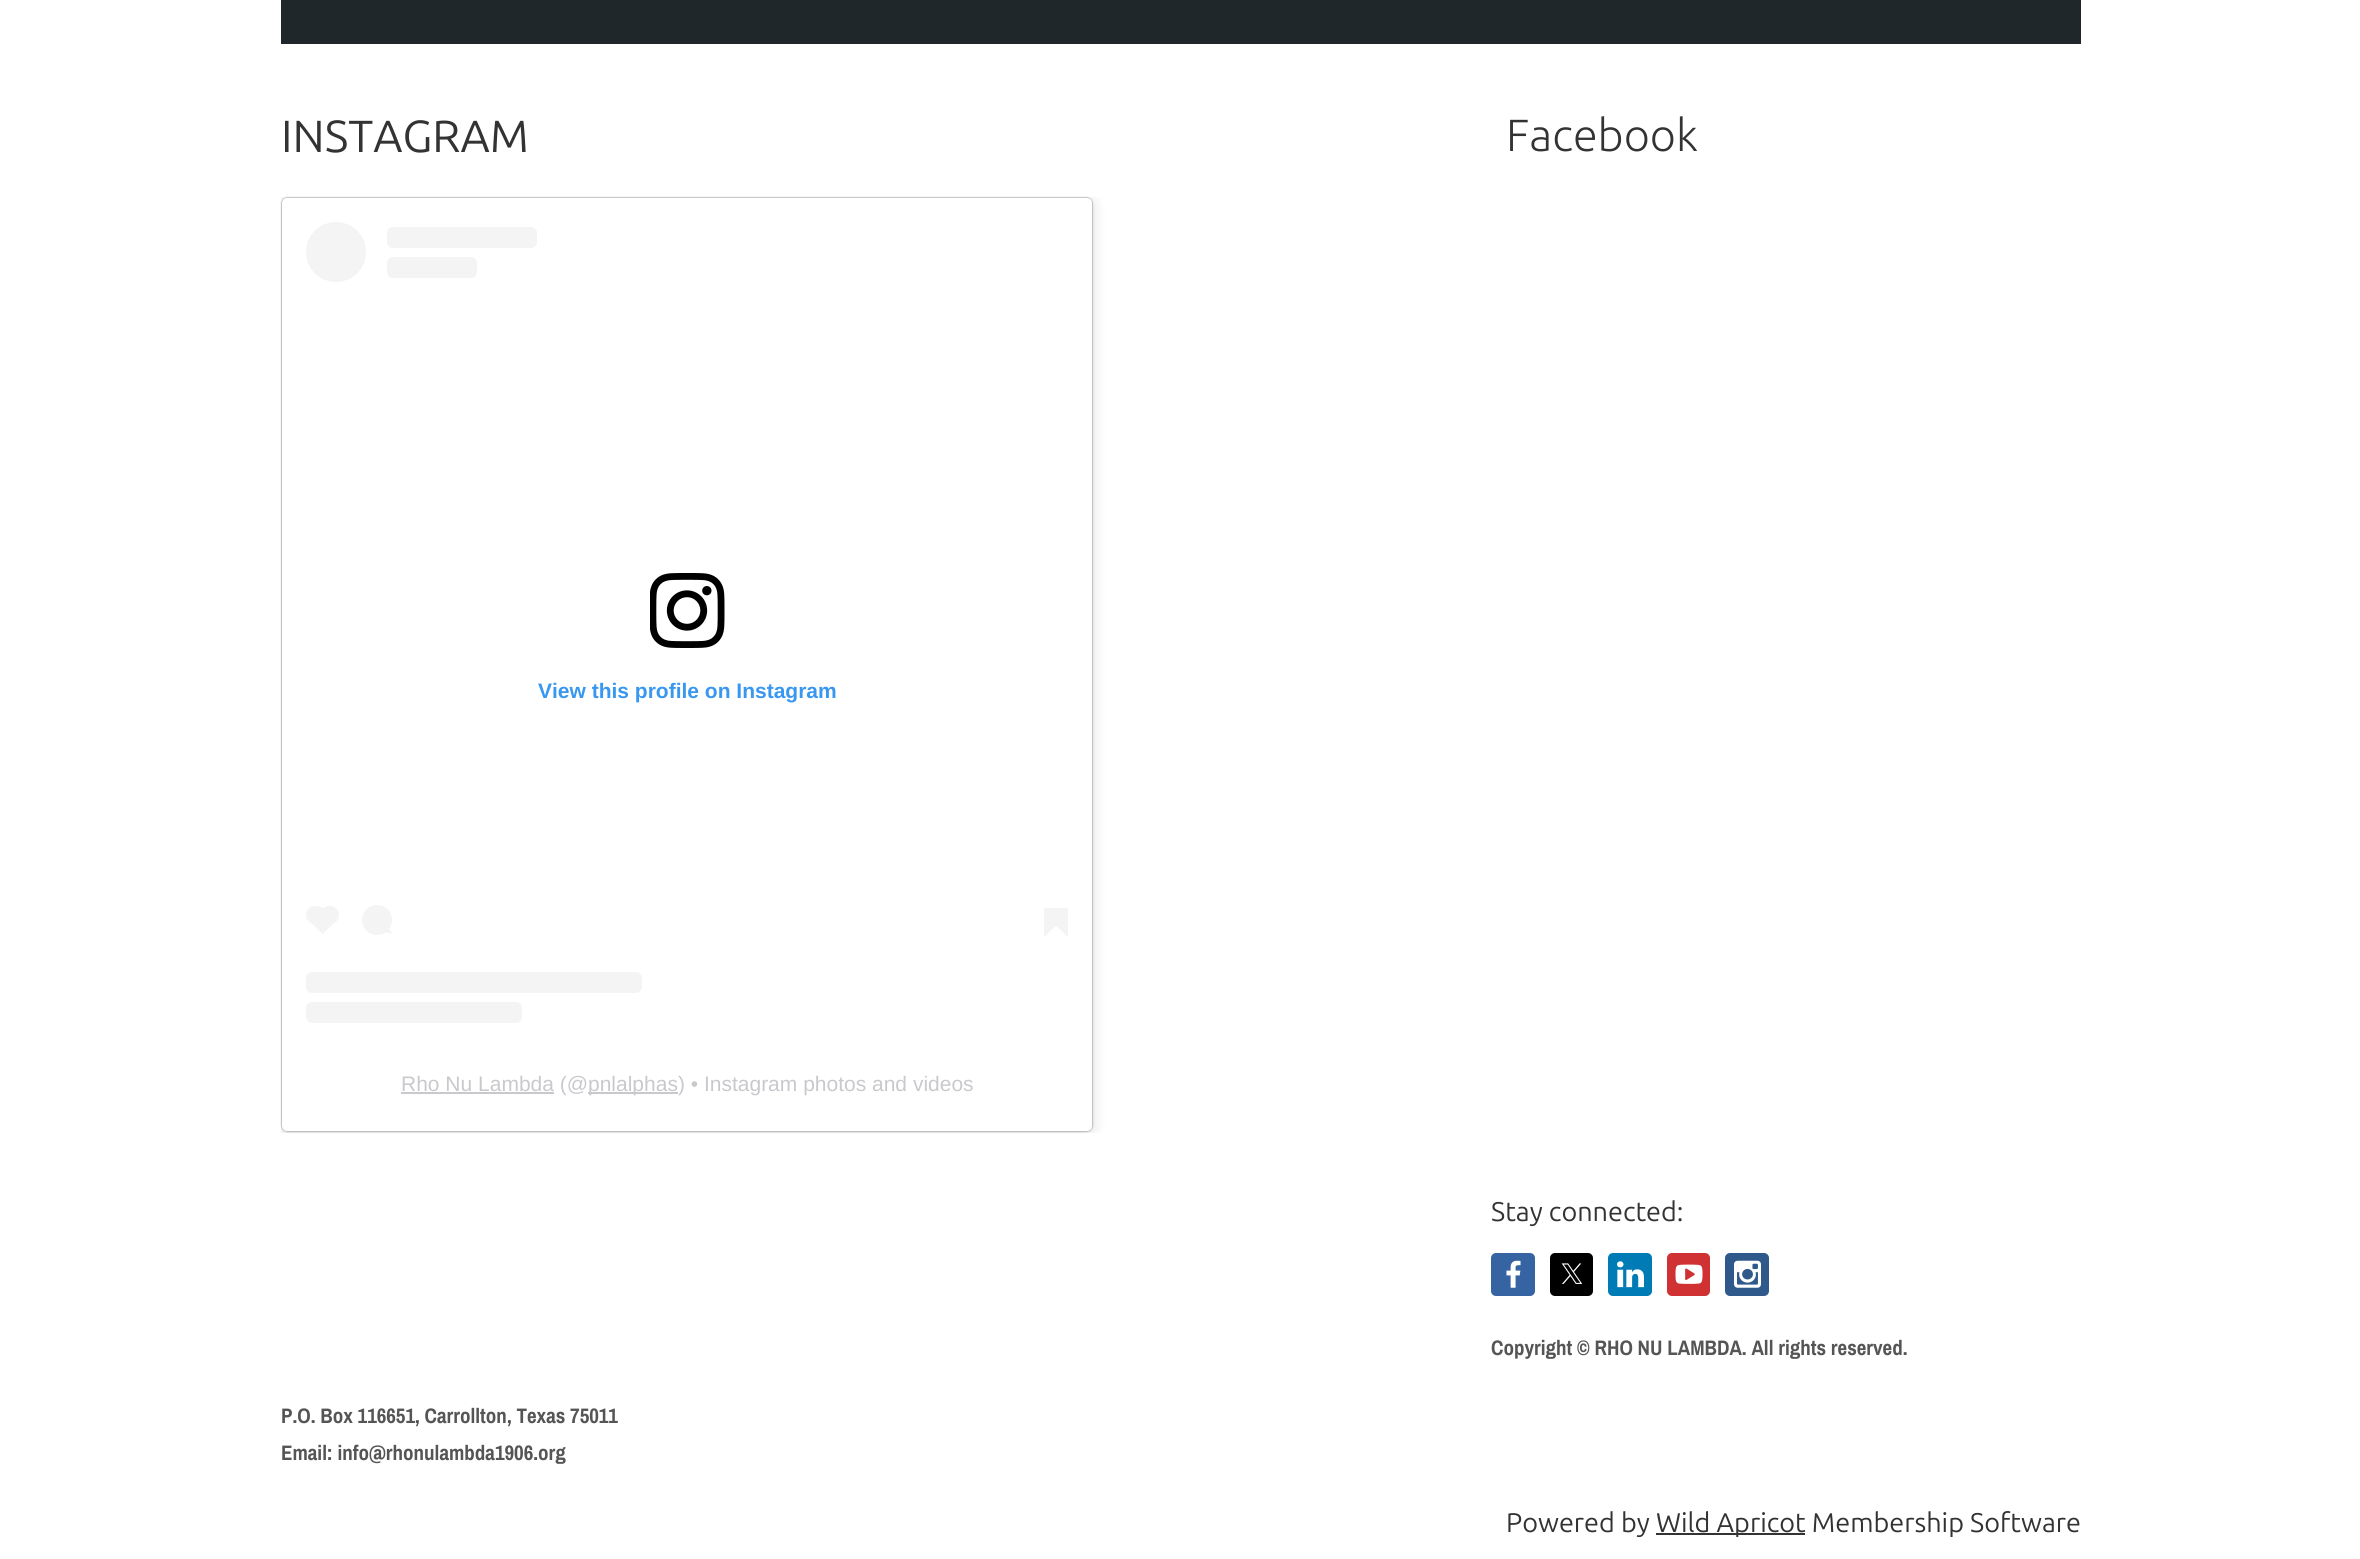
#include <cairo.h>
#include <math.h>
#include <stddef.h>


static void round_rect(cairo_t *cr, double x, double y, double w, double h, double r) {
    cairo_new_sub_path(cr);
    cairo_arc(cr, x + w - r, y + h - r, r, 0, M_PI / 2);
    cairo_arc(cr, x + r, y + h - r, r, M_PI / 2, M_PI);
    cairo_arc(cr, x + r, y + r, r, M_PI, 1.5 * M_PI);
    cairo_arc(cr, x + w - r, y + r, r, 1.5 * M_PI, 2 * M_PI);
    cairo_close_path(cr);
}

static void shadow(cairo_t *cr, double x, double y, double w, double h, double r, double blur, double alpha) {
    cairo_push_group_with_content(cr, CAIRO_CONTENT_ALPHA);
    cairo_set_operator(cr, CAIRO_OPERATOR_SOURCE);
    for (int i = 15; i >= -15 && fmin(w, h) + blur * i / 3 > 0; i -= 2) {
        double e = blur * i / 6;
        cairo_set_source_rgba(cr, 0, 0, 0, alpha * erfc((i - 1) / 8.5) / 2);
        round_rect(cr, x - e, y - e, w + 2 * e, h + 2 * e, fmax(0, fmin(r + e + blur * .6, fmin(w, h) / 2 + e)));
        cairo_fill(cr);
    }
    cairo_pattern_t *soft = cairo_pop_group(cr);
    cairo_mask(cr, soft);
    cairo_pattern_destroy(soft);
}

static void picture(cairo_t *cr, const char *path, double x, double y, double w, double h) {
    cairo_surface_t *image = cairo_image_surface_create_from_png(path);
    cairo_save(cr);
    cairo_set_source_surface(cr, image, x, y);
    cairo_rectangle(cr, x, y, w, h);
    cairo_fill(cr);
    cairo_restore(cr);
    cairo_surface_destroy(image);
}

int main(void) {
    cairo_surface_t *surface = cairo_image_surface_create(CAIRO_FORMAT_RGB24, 2360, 1559);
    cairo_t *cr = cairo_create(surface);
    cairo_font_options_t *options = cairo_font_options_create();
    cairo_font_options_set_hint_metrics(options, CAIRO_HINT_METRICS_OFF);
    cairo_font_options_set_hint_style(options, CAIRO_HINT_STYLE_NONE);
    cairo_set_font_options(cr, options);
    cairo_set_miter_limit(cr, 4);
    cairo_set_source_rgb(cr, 1, 1, 1);
    cairo_paint(cr);
    cairo_set_source_rgb(cr, 0.122, 0.153, 0.169);
    cairo_rectangle(cr, 281, 0, 1800, 44);
    cairo_fill(cr);
    cairo_select_font_face(cr, "Ubuntu", CAIRO_FONT_SLANT_NORMAL, CAIRO_FONT_WEIGHT_NORMAL);
    cairo_set_font_size(cr, 45);
    cairo_set_source_rgb(cr, 0.2, 0.2, 0.2);
    cairo_move_to(cr, 281, 152);
    cairo_show_text(cr, "INSTAGRAM");
    cairo_save(cr);
    cairo_rectangle(cr, 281, 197, 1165, 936);
    cairo_clip(cr);
    cairo_set_source_rgb(cr, 0, 0, 0);
    shadow(cr, 282, 200, 810, 933, 5, 7.5, 0.15);
    cairo_restore(cr);
    cairo_set_source_rgb(cr, 0, 0, 0);
    shadow(cr, 282, 198, 810, 933, 5, 1, 0.5);
    cairo_set_source_rgb(cr, 1, 1, 1);
    round_rect(cr, 282, 198, 810, 933, 5);
    cairo_fill(cr);
    cairo_set_source_rgb(cr, 0.957, 0.957, 0.957);
    cairo_arc(cr, 336, 252, 30, 0, 2 * M_PI);
    cairo_fill(cr);
    round_rect(cr, 387, 227, 150, 21, 6);
    cairo_fill(cr);
    round_rect(cr, 387, 257, 90, 21, 6);
    cairo_fill(cr);
    picture(cr, "img1.png", 650, 573, 75, 75);
    cairo_select_font_face(cr, "Liberation Sans", CAIRO_FONT_SLANT_NORMAL, CAIRO_FONT_WEIGHT_BOLD);
    cairo_set_font_size(cr, 21);
    cairo_set_source_rgb(cr, 0.22, 0.592, 0.941);
    cairo_move_to(cr, 538, 698);
    cairo_show_text(cr, "View this profile on Instagram");
    cairo_set_source_rgb(cr, 0.957, 0.957, 0.957);
    round_rect(cr, 306, 906, 20, 18, 9);
    cairo_fill(cr);
    cairo_new_path(cr);
    cairo_move_to(cr, 309.5, 921);
    cairo_line_to(cr, 322.5, 907.5);
    cairo_line_to(cr, 336, 921);
    cairo_line_to(cr, 322.5, 934);
    cairo_close_path(cr);
    cairo_fill(cr);
    round_rect(cr, 320, 906, 19, 18, 9);
    cairo_fill(cr);
    cairo_arc(cr, 377, 920, 15, 0, 2 * M_PI);
    cairo_fill(cr);
    cairo_new_path(cr);
    cairo_move_to(cr, 384, 932);
    cairo_line_to(cr, 387, 927);
    cairo_line_to(cr, 393, 934);
    cairo_close_path(cr);
    cairo_fill(cr);
    cairo_new_path(cr);
    cairo_move_to(cr, 1044, 925.5);
    cairo_line_to(cr, 1056, 925.5);
    cairo_line_to(cr, 1044, 937.5);
    cairo_close_path(cr);
    cairo_fill(cr);
    cairo_rectangle(cr, 1044, 908, 24, 18);
    cairo_fill(cr);
    cairo_new_path(cr);
    cairo_move_to(cr, 1056, 925.5);
    cairo_line_to(cr, 1068, 925.5);
    cairo_line_to(cr, 1068, 937.5);
    cairo_close_path(cr);
    cairo_fill(cr);
    round_rect(cr, 306, 972, 336, 21, 6);
    cairo_fill(cr);
    round_rect(cr, 306, 1002, 216, 21, 6);
    cairo_fill(cr);
    cairo_set_source_rgb(cr, 0.788, 0.784, 0.804);
    cairo_rectangle(cr, 401, 1092, 153, 2);
    cairo_fill(cr);
    cairo_select_font_face(cr, "Liberation Sans", CAIRO_FONT_SLANT_NORMAL, CAIRO_FONT_WEIGHT_NORMAL);
    cairo_move_to(cr, 401, 1091);
    cairo_show_text(cr, "Rho Nu Lambda (@");
    cairo_rectangle(cr, 588, 1092, 90, 2);
    cairo_fill(cr);
    cairo_move_to(cr, 588, 1091);
    cairo_show_text(cr, "pnlalphas) • Instagram photos and videos");
    cairo_select_font_face(cr, "Ubuntu Light", CAIRO_FONT_SLANT_NORMAL, CAIRO_FONT_WEIGHT_NORMAL);
    cairo_set_font_size(cr, 45);
    cairo_set_source_rgb(cr, 0.2, 0.2, 0.2);
    cairo_move_to(cr, 1506, 151);
    cairo_show_text(cr, "Facebook");
    cairo_select_font_face(cr, "Ubuntu", CAIRO_FONT_SLANT_NORMAL, CAIRO_FONT_WEIGHT_NORMAL);
    cairo_set_font_size(cr, 27);
    cairo_move_to(cr, 1491, 1221);
    cairo_show_text(cr, "Stay connected:");
    cairo_set_source_rgb(cr, 0.212, 0.392, 0.635);
    round_rect(cr, 1491, 1253, 44, 43, 5);
    cairo_fill(cr);
    picture(cr, "img2.png", 1506, 1260, 15, 28);
    cairo_set_source_rgb(cr, 0, 0, 0);
    round_rect(cr, 1550, 1253, 43, 43, 5);
    cairo_fill(cr);
    picture(cr, "img3.png", 1561, 1263, 22, 21);
    cairo_set_source_rgb(cr, 0, 0.482, 0.714);
    round_rect(cr, 1608, 1253, 44, 43, 5);
    cairo_fill(cr);
    picture(cr, "img4.png", 1617, 1261, 27, 27);
    cairo_set_source_rgb(cr, 0.816, 0.192, 0.2);
    round_rect(cr, 1667, 1253, 43, 43, 5);
    cairo_fill(cr);
    picture(cr, "img5.png", 1675, 1264, 28, 20);
    cairo_set_source_rgb(cr, 0.184, 0.349, 0.541);
    round_rect(cr, 1725, 1253, 44, 43, 5);
    cairo_fill(cr);
    picture(cr, "img6.png", 1734, 1260, 27, 28);
    cairo_select_font_face(cr, "Archivo Narrow", CAIRO_FONT_SLANT_NORMAL, CAIRO_FONT_WEIGHT_BOLD);
    cairo_set_font_size(cr, 21);
    cairo_set_source_rgb(cr, 0.333, 0.333, 0.333);
    cairo_move_to(cr, 1491, 1355);
    cairo_show_text(cr, "Copyright © RHO NU LAMBDA. All rights reserved.");
    cairo_move_to(cr, 281, 1423);
    cairo_show_text(cr, "P.O. Box 116651, Carrollton, Texas 75011");
    cairo_move_to(cr, 281, 1460);
    cairo_show_text(cr, "Email: info@rhonulambda1906.org");
    cairo_select_font_face(cr, "Ubuntu", CAIRO_FONT_SLANT_NORMAL, CAIRO_FONT_WEIGHT_NORMAL);
    cairo_set_font_size(cr, 27);
    cairo_set_source_rgb(cr, 0.2, 0.2, 0.2);
    cairo_move_to(cr, 1506, 1532);
    cairo_show_text(cr, "Powered by");
    cairo_rectangle(cr, 1656, 1533, 149, 2);
    cairo_fill(cr);
    cairo_move_to(cr, 1656, 1532);
    cairo_show_text(cr, "Wild Apricot Membership Software");
    cairo_surface_write_to_png(surface, "page.png");
    cairo_font_options_destroy(options);
    cairo_destroy(cr);
    cairo_surface_destroy(surface);
    return 0;
}
